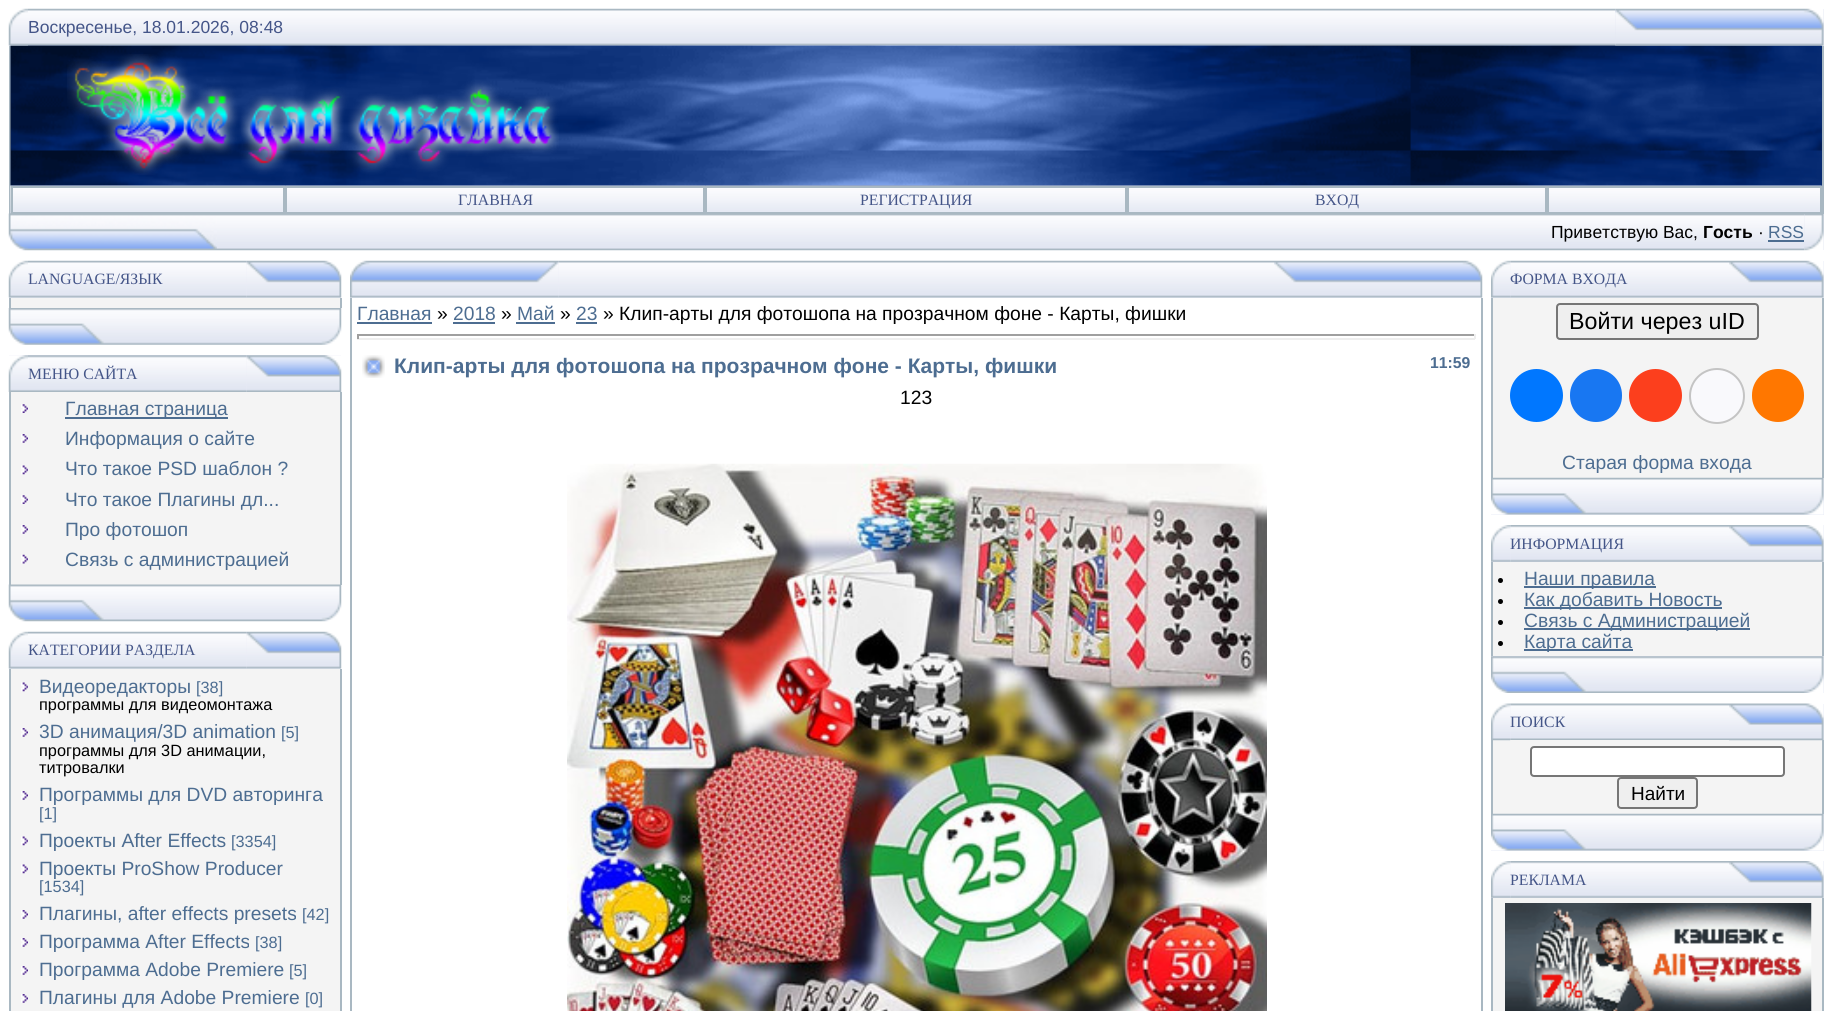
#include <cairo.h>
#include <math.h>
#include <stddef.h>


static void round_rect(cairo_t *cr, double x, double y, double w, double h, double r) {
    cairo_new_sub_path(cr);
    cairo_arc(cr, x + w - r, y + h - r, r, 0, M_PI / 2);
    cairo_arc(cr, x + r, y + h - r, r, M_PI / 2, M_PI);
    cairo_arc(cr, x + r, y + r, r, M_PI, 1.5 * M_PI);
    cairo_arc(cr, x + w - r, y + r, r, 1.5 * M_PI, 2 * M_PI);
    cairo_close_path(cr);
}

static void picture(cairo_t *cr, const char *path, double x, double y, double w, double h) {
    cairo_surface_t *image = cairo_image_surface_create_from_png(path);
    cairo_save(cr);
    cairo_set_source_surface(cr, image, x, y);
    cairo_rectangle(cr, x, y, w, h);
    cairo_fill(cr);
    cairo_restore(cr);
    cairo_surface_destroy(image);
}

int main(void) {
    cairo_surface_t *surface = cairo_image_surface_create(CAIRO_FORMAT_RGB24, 1832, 1011);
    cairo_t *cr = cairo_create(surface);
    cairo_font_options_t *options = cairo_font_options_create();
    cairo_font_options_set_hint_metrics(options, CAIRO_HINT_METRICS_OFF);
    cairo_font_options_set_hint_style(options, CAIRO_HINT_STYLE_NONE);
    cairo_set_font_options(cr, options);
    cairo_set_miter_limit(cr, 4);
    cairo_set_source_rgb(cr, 1, 1, 1);
    cairo_paint(cr);
    cairo_set_source_rgb(cr, 0.894, 0.91, 0.953);
    cairo_rectangle(cr, 9, 45, 19, 1);
    cairo_fill(cr);
    picture(cr, "img2.png", 28, 8, 1588, 38);
    cairo_rectangle(cr, 1615, 9, 209, 37);
    cairo_fill(cr);
    cairo_set_source_rgb(cr, 0.663, 0.722, 0.761);
    cairo_rectangle(cr, 9, 46, 2, 168);
    cairo_fill(cr);
    cairo_set_source_rgb(cr, 0.012, 0.153, 0.431);
    cairo_rectangle(cr, 11, 46, 1811, 140);
    cairo_fill(cr);
    picture(cr, "img4.png", 10, 45, 1812, 141);
    picture(cr, "img1.png", 8, 8, 20, 38);
    cairo_select_font_face(cr, "Liberation Sans", CAIRO_FONT_SLANT_NORMAL, CAIRO_FONT_WEIGHT_NORMAL);
    cairo_set_font_size(cr, 17.5);
    cairo_set_source_rgb(cr, 0.267, 0.333, 0.533);
    cairo_move_to(cr, 28, 33);
    cairo_show_text(cr, "Воскресенье, 18.01.2026, 08:48");
    picture(cr, "img3.png", 1615, 8, 209, 38);
    cairo_set_source_rgb(cr, 0.663, 0.722, 0.761);
    cairo_rectangle(cr, 1822, 46, 2, 168);
    cairo_fill(cr);
    picture(cr, "img5.png", 67, 54, 492, 121);
    picture(cr, "img6.png", 10, 185, 276, 29);
    cairo_rectangle(cr, 12, 187, 272, 26);
    cairo_stroke(cr);
    picture(cr, "img7.png", 285, 185, 421, 27);
    cairo_rectangle(cr, 286, 187, 418, 26);
    cairo_stroke(cr);
    cairo_select_font_face(cr, "Liberation Serif", CAIRO_FONT_SLANT_NORMAL, CAIRO_FONT_WEIGHT_NORMAL);
    cairo_set_font_size(cr, 15.75);
    cairo_set_source_rgb(cr, 0.267, 0.333, 0.533);
    cairo_move_to(cr, 458, 205);
    cairo_show_text(cr, "ГЛАВНАЯ");
    picture(cr, "img8.png", 705, 185, 422, 27);
    cairo_rectangle(cr, 706, 187, 420, 26);
    cairo_set_source_rgb(cr, 0.663, 0.722, 0.761);
    cairo_stroke(cr);
    cairo_set_source_rgb(cr, 0.267, 0.333, 0.533);
    cairo_move_to(cr, 860, 205);
    cairo_show_text(cr, "РЕГИСТРАЦИЯ");
    picture(cr, "img9.png", 1127, 185, 420, 27);
    cairo_rectangle(cr, 1128, 187, 418, 26);
    cairo_set_source_rgb(cr, 0.663, 0.722, 0.761);
    cairo_stroke(cr);
    cairo_set_source_rgb(cr, 0.267, 0.333, 0.533);
    cairo_move_to(cr, 1315, 205);
    cairo_show_text(cr, "ВХОД");
    picture(cr, "img10.png", 1547, 185, 275, 27);
    cairo_rectangle(cr, 1548, 187, 273, 26);
    cairo_set_source_rgb(cr, 0.663, 0.722, 0.761);
    cairo_stroke(cr);
    picture(cr, "img11.png", 8, 213, 209, 38);
    picture(cr, "img12.png", 217, 214, 1588, 37);
    cairo_select_font_face(cr, "Liberation Sans", CAIRO_FONT_SLANT_NORMAL, CAIRO_FONT_WEIGHT_NORMAL);
    cairo_set_font_size(cr, 17.5);
    cairo_set_source_rgb(cr, 0, 0, 0);
    cairo_move_to(cr, 1551, 238);
    cairo_show_text(cr, "Приветствую Вас,");
    cairo_select_font_face(cr, "Liberation Sans", CAIRO_FONT_SLANT_NORMAL, CAIRO_FONT_WEIGHT_BOLD);
    cairo_move_to(cr, 1703, 238);
    cairo_show_text(cr, "Гость");
    cairo_select_font_face(cr, "Liberation Sans", CAIRO_FONT_SLANT_NORMAL, CAIRO_FONT_WEIGHT_NORMAL);
    cairo_move_to(cr, 1758, 238);
    cairo_show_text(cr, "·");
    cairo_set_source_rgb(cr, 0.302, 0.427, 0.569);
    cairo_move_to(cr, 1768, 238);
    cairo_show_text(cr, "RSS");
    cairo_rectangle(cr, 1768, 240, 36, 2);
    cairo_fill(cr);
    cairo_set_source_rgb(cr, 0.894, 0.91, 0.953);
    cairo_rectangle(cr, 1804, 214, 20, 36);
    cairo_fill(cr);
    picture(cr, "img13.png", 1804, 214, 20, 37);
    cairo_set_source_rgb(cr, 0.914, 0.925, 0.961);
    cairo_rectangle(cr, 9, 261, 332, 37);
    cairo_fill(cr);
    picture(cr, "img14.png", 8, 260, 20, 38);
    picture(cr, "img15.png", 28, 260, 219, 38);
    cairo_select_font_face(cr, "Liberation Serif", CAIRO_FONT_SLANT_NORMAL, CAIRO_FONT_WEIGHT_NORMAL);
    cairo_set_font_size(cr, 15.75);
    cairo_set_source_rgb(cr, 0.267, 0.333, 0.533);
    cairo_move_to(cr, 28, 284);
    cairo_show_text(cr, "LANGUAGE/ЯЗЫК");
    picture(cr, "img16.png", 246, 260, 96, 38);
    cairo_set_source_rgb(cr, 0.957, 0.957, 0.957);
    cairo_rectangle(cr, 11, 298, 329, 10);
    cairo_fill(cr);
    cairo_set_source_rgb(cr, 0.663, 0.722, 0.761);
    cairo_rectangle(cr, 340, 298, 2, 10);
    cairo_fill(cr);
    cairo_rectangle(cr, 9, 298, 2, 10);
    cairo_fill(cr);
    picture(cr, "img17.png", 8, 308, 334, 37);
    cairo_set_source_rgb(cr, 0.914, 0.925, 0.961);
    cairo_rectangle(cr, 9, 355, 332, 37);
    cairo_fill(cr);
    picture(cr, "img18.png", 8, 355, 20, 37);
    picture(cr, "img19.png", 28, 355, 219, 37);
    cairo_set_source_rgb(cr, 0.267, 0.333, 0.533);
    cairo_move_to(cr, 28, 379);
    cairo_show_text(cr, "МЕНЮ САЙТА");
    picture(cr, "img20.png", 246, 355, 96, 37);
    cairo_set_source_rgb(cr, 0.957, 0.957, 0.957);
    cairo_rectangle(cr, 11, 392, 329, 193);
    cairo_fill(cr);
    cairo_set_source_rgb(cr, 0.663, 0.722, 0.761);
    cairo_rectangle(cr, 340, 392, 2, 193);
    cairo_fill(cr);
    cairo_rectangle(cr, 9, 392, 2, 193);
    cairo_fill(cr);
    picture(cr, "img21.png", 21, 404, 7, 9);
    cairo_set_source_rgb(cr, 0.302, 0.427, 0.569);
    cairo_rectangle(cr, 65, 417, 163, 2);
    cairo_fill(cr);
    cairo_select_font_face(cr, "Liberation Sans", CAIRO_FONT_SLANT_NORMAL, CAIRO_FONT_WEIGHT_NORMAL);
    cairo_set_font_size(cr, 19.25);
    cairo_move_to(cr, 65, 415);
    cairo_show_text(cr, "Главная страница");
    picture(cr, "img22.png", 21, 434, 7, 9);
    cairo_move_to(cr, 65, 445);
    cairo_show_text(cr, "Информация о сайте");
    picture(cr, "img23.png", 21, 465, 7, 10);
    cairo_move_to(cr, 65, 475);
    cairo_show_text(cr, "Что такое PSD шаблон ?");
    picture(cr, "img21.png", 21, 495, 7, 9);
    cairo_move_to(cr, 65, 506);
    cairo_show_text(cr, "Что такое Плагины дл...");
    picture(cr, "img22.png", 21, 525, 7, 9);
    cairo_move_to(cr, 65, 536);
    cairo_show_text(cr, "Про фотошоп");
    picture(cr, "img24.png", 21, 554, 7, 10);
    cairo_move_to(cr, 65, 566);
    cairo_show_text(cr, "Связь с администрацией");
    picture(cr, "img25.png", 8, 584, 334, 38);
    cairo_set_source_rgb(cr, 0.914, 0.925, 0.961);
    cairo_rectangle(cr, 9, 632, 332, 37);
    cairo_fill(cr);
    picture(cr, "img14.png", 8, 631, 20, 38);
    picture(cr, "img15.png", 28, 631, 219, 38);
    cairo_select_font_face(cr, "Liberation Serif", CAIRO_FONT_SLANT_NORMAL, CAIRO_FONT_WEIGHT_NORMAL);
    cairo_set_font_size(cr, 15.75);
    cairo_set_source_rgb(cr, 0.267, 0.333, 0.533);
    cairo_move_to(cr, 28, 655);
    cairo_show_text(cr, "КАТЕГОРИИ РАЗДЕЛА");
    picture(cr, "img16.png", 246, 631, 96, 38);
    cairo_set_source_rgb(cr, 0.957, 0.957, 0.957);
    cairo_rectangle(cr, 11, 669, 329, 342);
    cairo_fill(cr);
    cairo_set_source_rgb(cr, 0.663, 0.722, 0.761);
    cairo_rectangle(cr, 340, 669, 2, 342);
    cairo_fill(cr);
    cairo_rectangle(cr, 9, 669, 2, 342);
    cairo_fill(cr);
    picture(cr, "img23.png", 21, 682, 7, 10);
    cairo_select_font_face(cr, "Liberation Sans", CAIRO_FONT_SLANT_NORMAL, CAIRO_FONT_WEIGHT_NORMAL);
    cairo_set_font_size(cr, 19.25);
    cairo_set_source_rgb(cr, 0.302, 0.427, 0.569);
    cairo_move_to(cr, 39, 693);
    cairo_show_text(cr, "Видеоредакторы");
    cairo_set_font_size(cr, 16.3);
    cairo_move_to(cr, 196, 693);
    cairo_show_text(cr, "[38]");
    cairo_set_source_rgb(cr, 0, 0, 0);
    cairo_move_to(cr, 39, 710);
    cairo_show_text(cr, "программы для видеомонтажа");
    picture(cr, "img22.png", 21, 728, 7, 9);
    cairo_set_font_size(cr, 19.25);
    cairo_set_source_rgb(cr, 0.302, 0.427, 0.569);
    cairo_move_to(cr, 39, 738);
    cairo_show_text(cr, "3D анимация/3D animation");
    cairo_set_font_size(cr, 16.3);
    cairo_move_to(cr, 281, 738);
    cairo_show_text(cr, "[5]");
    cairo_set_source_rgb(cr, 0, 0, 0);
    cairo_move_to(cr, 39, 756);
    cairo_show_text(cr, "программы для 3D анимации,");
    cairo_move_to(cr, 39, 773);
    cairo_show_text(cr, "титровалки");
    picture(cr, "img22.png", 21, 791, 7, 9);
    cairo_set_font_size(cr, 19.25);
    cairo_set_source_rgb(cr, 0.302, 0.427, 0.569);
    cairo_move_to(cr, 39, 801);
    cairo_show_text(cr, "Программы для DVD авторинга");
    cairo_set_font_size(cr, 16.3);
    cairo_move_to(cr, 39, 819);
    cairo_show_text(cr, "[1]");
    picture(cr, "img23.png", 21, 836, 7, 10);
    cairo_set_font_size(cr, 19.25);
    cairo_move_to(cr, 39, 847);
    cairo_show_text(cr, "Проекты After Effects");
    cairo_set_font_size(cr, 16.3);
    cairo_move_to(cr, 231, 847);
    cairo_show_text(cr, "[3354]");
    picture(cr, "img23.png", 21, 864, 7, 10);
    cairo_set_font_size(cr, 19.25);
    cairo_move_to(cr, 39, 875);
    cairo_show_text(cr, "Проекты ProShow Producer");
    cairo_set_font_size(cr, 16.3);
    cairo_move_to(cr, 39, 892);
    cairo_show_text(cr, "[1534]");
    picture(cr, "img22.png", 21, 910, 7, 9);
    cairo_set_font_size(cr, 19.25);
    cairo_move_to(cr, 39, 920);
    cairo_show_text(cr, "Плагины, after effects presets");
    cairo_set_font_size(cr, 16.3);
    cairo_move_to(cr, 302, 920);
    cairo_show_text(cr, "[42]");
    picture(cr, "img22.png", 21, 938, 7, 9);
    cairo_set_font_size(cr, 19.25);
    cairo_move_to(cr, 39, 948);
    cairo_show_text(cr, "Программа After Effects");
    cairo_set_font_size(cr, 16.3);
    cairo_move_to(cr, 255, 948);
    cairo_show_text(cr, "[38]");
    picture(cr, "img22.png", 21, 966, 7, 9);
    cairo_set_font_size(cr, 19.25);
    cairo_move_to(cr, 39, 976);
    cairo_show_text(cr, "Программа Adobe Premiere");
    cairo_set_font_size(cr, 16.3);
    cairo_move_to(cr, 289, 976);
    cairo_show_text(cr, "[5]");
    picture(cr, "img22.png", 21, 994, 7, 9);
    cairo_set_font_size(cr, 19.25);
    cairo_move_to(cr, 39, 1004);
    cairo_show_text(cr, "Плагины для Adobe Premiere");
    cairo_set_font_size(cr, 16.3);
    cairo_move_to(cr, 305, 1004);
    cairo_show_text(cr, "[0]");
    cairo_set_source_rgb(cr, 0.914, 0.925, 0.961);
    cairo_rectangle(cr, 350, 297, 208, 1);
    cairo_fill(cr);
    cairo_rectangle(cr, 558, 261, 716, 37);
    cairo_fill(cr);
    picture(cr, "img27.png", 558, 260, 716, 38);
    picture(cr, "img26.png", 350, 260, 209, 38);
    cairo_rectangle(cr, 1274, 297, 208, 1);
    cairo_fill(cr);
    picture(cr, "img28.png", 1274, 260, 209, 38);
    cairo_set_source_rgb(cr, 0.663, 0.722, 0.761);
    cairo_rectangle(cr, 1481, 298, 2, 713);
    cairo_fill(cr);
    cairo_rectangle(cr, 350, 298, 2, 713);
    cairo_fill(cr);
    cairo_set_font_size(cr, 19.25);
    cairo_set_source_rgb(cr, 0.302, 0.427, 0.569);
    cairo_move_to(cr, 357, 320);
    cairo_show_text(cr, "Главная");
    cairo_rectangle(cr, 357, 322, 75, 2);
    cairo_fill(cr);
    cairo_set_source_rgb(cr, 0, 0, 0);
    cairo_move_to(cr, 437, 320);
    cairo_show_text(cr, "»");
    cairo_set_source_rgb(cr, 0.302, 0.427, 0.569);
    cairo_move_to(cr, 453, 320);
    cairo_show_text(cr, "2018");
    cairo_rectangle(cr, 453, 322, 42, 2);
    cairo_fill(cr);
    cairo_set_source_rgb(cr, 0, 0, 0);
    cairo_move_to(cr, 501, 320);
    cairo_show_text(cr, "»");
    cairo_set_source_rgb(cr, 0.302, 0.427, 0.569);
    cairo_move_to(cr, 517, 320);
    cairo_show_text(cr, "Май");
    cairo_rectangle(cr, 516, 322, 39, 2);
    cairo_fill(cr);
    cairo_set_source_rgb(cr, 0, 0, 0);
    cairo_move_to(cr, 560, 320);
    cairo_show_text(cr, "»");
    cairo_set_source_rgb(cr, 0.302, 0.427, 0.569);
    cairo_move_to(cr, 576, 320);
    cairo_show_text(cr, "23");
    cairo_rectangle(cr, 576, 322, 21, 2);
    cairo_fill(cr);
    cairo_set_source_rgb(cr, 0, 0, 0);
    cairo_move_to(cr, 603, 320);
    cairo_show_text(cr, "» Клип-арты для фотошопа на прозрачном фоне - Карты, фишки");
    cairo_set_source_rgb(cr, 0.624, 0.624, 0.624);
    cairo_rectangle(cr, 357, 334, 1118, 2);
    cairo_fill(cr);
    cairo_set_source_rgb(cr, 0.933, 0.933, 0.933);
    cairo_rectangle(cr, 1474, 334, 2, 5);
    cairo_fill(cr);
    cairo_rectangle(cr, 357, 338, 1118, 2);
    cairo_fill(cr);
    cairo_set_source_rgb(cr, 0.624, 0.624, 0.624);
    cairo_rectangle(cr, 357, 334, 2, 5);
    cairo_fill(cr);
    picture(cr, "img29.png", 362, 355, 23, 23);
    cairo_select_font_face(cr, "Liberation Sans", CAIRO_FONT_SLANT_NORMAL, CAIRO_FONT_WEIGHT_BOLD);
    cairo_set_font_size(cr, 21);
    cairo_set_source_rgb(cr, 0.302, 0.427, 0.569);
    cairo_move_to(cr, 394, 373);
    cairo_show_text(cr, "Клип-арты для фотошопа на прозрачном фоне - Карты, фишки");
    cairo_set_font_size(cr, 15.75);
    cairo_move_to(cr, 1430, 368);
    cairo_show_text(cr, "11:59");
    cairo_select_font_face(cr, "Liberation Sans", CAIRO_FONT_SLANT_NORMAL, CAIRO_FONT_WEIGHT_NORMAL);
    cairo_set_font_size(cr, 19.25);
    cairo_set_source_rgb(cr, 0, 0, 0);
    cairo_move_to(cr, 900, 404);
    cairo_show_text(cr, "123");
    picture(cr, "img30.png", 567, 463, 700, 548);
    cairo_set_source_rgb(cr, 0.914, 0.925, 0.961);
    cairo_rectangle(cr, 1491, 261, 333, 37);
    cairo_fill(cr);
    picture(cr, "img32.png", 1510, 260, 219, 38);
    picture(cr, "img31.png", 1491, 260, 20, 38);
    cairo_select_font_face(cr, "Liberation Serif", CAIRO_FONT_SLANT_NORMAL, CAIRO_FONT_WEIGHT_NORMAL);
    cairo_set_font_size(cr, 15.75);
    cairo_set_source_rgb(cr, 0.267, 0.333, 0.533);
    cairo_move_to(cr, 1510, 284);
    cairo_show_text(cr, "ФОРМА ВХОДА");
    picture(cr, "img33.png", 1729, 260, 95, 38);
    cairo_set_source_rgb(cr, 0.957, 0.957, 0.957);
    cairo_rectangle(cr, 1493, 298, 329, 180);
    cairo_fill(cr);
    cairo_set_source_rgb(cr, 0.663, 0.722, 0.761);
    cairo_rectangle(cr, 1822, 298, 2, 180);
    cairo_fill(cr);
    cairo_rectangle(cr, 1491, 298, 2, 180);
    cairo_fill(cr);
    cairo_set_source_rgb(cr, 0.937, 0.937, 0.937);
    round_rect(cr, 1557, 304, 201, 35, 3);
    cairo_fill_preserve(cr);
    cairo_set_source_rgb(cr, 0.463, 0.463, 0.463);
    cairo_stroke(cr);
    cairo_select_font_face(cr, "Liberation Sans", CAIRO_FONT_SLANT_NORMAL, CAIRO_FONT_WEIGHT_NORMAL);
    cairo_set_font_size(cr, 23.25);
    cairo_set_source_rgb(cr, 0, 0, 0);
    cairo_move_to(cr, 1569, 329);
    cairo_show_text(cr, "Войти через uID");
    cairo_set_source_rgb(cr, 0, 0.467, 1);
    cairo_new_path(cr);
    cairo_arc(cr, 1536.5, 395.5, 26.5, 0, 2 * M_PI);
    cairo_fill(cr);
    cairo_set_source_rgb(cr, 0.094, 0.467, 0.949);
    round_rect(cr, 1570, 369, 52, 53, 26);
    cairo_fill(cr);
    cairo_set_source_rgb(cr, 0.988, 0.247, 0.114);
    cairo_arc(cr, 1655.5, 395.5, 26.5, 0, 2 * M_PI);
    cairo_fill(cr);
    cairo_set_source_rgb(cr, 0.973, 0.973, 0.988);
    cairo_arc(cr, 1717, 396, 27, 0, 2 * M_PI);
    cairo_fill_preserve(cr);
    cairo_set_source_rgb(cr, 0.769, 0.769, 0.769);
    cairo_stroke(cr);
    cairo_set_source_rgb(cr, 1, 0.467, 0);
    round_rect(cr, 1752, 369, 52, 53, 26);
    cairo_fill(cr);
    cairo_set_font_size(cr, 19.25);
    cairo_set_source_rgb(cr, 0.302, 0.427, 0.569);
    cairo_move_to(cr, 1562, 469);
    cairo_show_text(cr, "Старая форма входа");
    cairo_set_source_rgb(cr, 0.914, 0.925, 0.961);
    cairo_rectangle(cr, 1491, 478, 333, 37);
    cairo_fill(cr);
    picture(cr, "img34.png", 1491, 477, 333, 38);
    cairo_rectangle(cr, 1491, 525, 333, 37);
    cairo_fill(cr);
    picture(cr, "img36.png", 1510, 525, 219, 37);
    picture(cr, "img35.png", 1491, 525, 20, 37);
    cairo_select_font_face(cr, "Liberation Serif", CAIRO_FONT_SLANT_NORMAL, CAIRO_FONT_WEIGHT_NORMAL);
    cairo_set_font_size(cr, 15.75);
    cairo_set_source_rgb(cr, 0.267, 0.333, 0.533);
    cairo_move_to(cr, 1510, 549);
    cairo_show_text(cr, "ИНФОРМАЦИЯ");
    picture(cr, "img37.png", 1729, 525, 95, 37);
    cairo_set_source_rgb(cr, 0.957, 0.957, 0.957);
    cairo_rectangle(cr, 1493, 562, 329, 94);
    cairo_fill(cr);
    cairo_set_source_rgb(cr, 0.663, 0.722, 0.761);
    cairo_rectangle(cr, 1822, 562, 2, 94);
    cairo_fill(cr);
    cairo_rectangle(cr, 1491, 562, 2, 94);
    cairo_fill(cr);
    cairo_set_source_rgb(cr, 0, 0, 0);
    cairo_arc(cr, 1500.5, 580.5, 2.5, 0, 2 * M_PI);
    cairo_fill(cr);
    cairo_set_source_rgb(cr, 0.302, 0.427, 0.569);
    cairo_rectangle(cr, 1524, 586, 132, 2);
    cairo_fill(cr);
    cairo_select_font_face(cr, "Liberation Sans", CAIRO_FONT_SLANT_NORMAL, CAIRO_FONT_WEIGHT_NORMAL);
    cairo_set_font_size(cr, 19.25);
    cairo_move_to(cr, 1524, 585);
    cairo_show_text(cr, "Наши правила");
    cairo_set_source_rgb(cr, 0, 0, 0);
    cairo_new_path(cr);
    cairo_arc(cr, 1500.5, 601.5, 2.5, 0, 2 * M_PI);
    cairo_fill(cr);
    cairo_set_source_rgb(cr, 0.302, 0.427, 0.569);
    cairo_rectangle(cr, 1524, 607, 198, 2);
    cairo_fill(cr);
    cairo_move_to(cr, 1524, 606);
    cairo_show_text(cr, "Как добавить Новость");
    cairo_set_source_rgb(cr, 0, 0, 0);
    cairo_new_path(cr);
    cairo_arc(cr, 1500.5, 622.5, 2.5, 0, 2 * M_PI);
    cairo_fill(cr);
    cairo_set_source_rgb(cr, 0.302, 0.427, 0.569);
    cairo_rectangle(cr, 1524, 628, 226, 2);
    cairo_fill(cr);
    cairo_move_to(cr, 1524, 627);
    cairo_show_text(cr, "Связь с Администрацией");
    cairo_set_source_rgb(cr, 0, 0, 0);
    cairo_new_path(cr);
    cairo_arc(cr, 1500.5, 643.5, 2.5, 0, 2 * M_PI);
    cairo_fill(cr);
    cairo_set_source_rgb(cr, 0.302, 0.427, 0.569);
    cairo_rectangle(cr, 1524, 649, 109, 2);
    cairo_fill(cr);
    cairo_move_to(cr, 1524, 648);
    cairo_show_text(cr, "Карта сайта");
    cairo_set_source_rgb(cr, 0.914, 0.925, 0.961);
    cairo_rectangle(cr, 1491, 656, 333, 37);
    cairo_fill(cr);
    picture(cr, "img38.png", 1491, 656, 333, 37);
    cairo_rectangle(cr, 1510, 704, 314, 36);
    cairo_fill(cr);
    picture(cr, "img40.png", 1510, 703, 219, 37);
    cairo_set_source_rgb(cr, 0.957, 0.957, 0.957);
    cairo_rectangle(cr, 1493, 740, 329, 74);
    cairo_fill(cr);
    cairo_set_source_rgb(cr, 0.663, 0.722, 0.761);
    cairo_rectangle(cr, 1491, 740, 2, 74);
    cairo_fill(cr);
    picture(cr, "img39.png", 1491, 703, 20, 38);
    cairo_select_font_face(cr, "Liberation Serif", CAIRO_FONT_SLANT_NORMAL, CAIRO_FONT_WEIGHT_NORMAL);
    cairo_set_font_size(cr, 15.75);
    cairo_set_source_rgb(cr, 0.267, 0.333, 0.533);
    cairo_move_to(cr, 1510, 727);
    cairo_show_text(cr, "ПОИСК");
    cairo_set_source_rgb(cr, 0.663, 0.722, 0.761);
    cairo_rectangle(cr, 1822, 740, 2, 74);
    cairo_fill(cr);
    picture(cr, "img41.png", 1729, 703, 95, 38);
    cairo_set_source_rgb(cr, 1, 1, 1);
    round_rect(cr, 1531, 747, 253, 29, 3);
    cairo_fill_preserve(cr);
    cairo_set_source_rgb(cr, 0.463, 0.463, 0.463);
    cairo_stroke(cr);
    cairo_set_source_rgb(cr, 0.937, 0.937, 0.937);
    round_rect(cr, 1618, 778, 79, 30, 3);
    cairo_fill_preserve(cr);
    cairo_set_source_rgb(cr, 0.463, 0.463, 0.463);
    cairo_stroke(cr);
    cairo_select_font_face(cr, "Liberation Sans", CAIRO_FONT_SLANT_NORMAL, CAIRO_FONT_WEIGHT_NORMAL);
    cairo_set_font_size(cr, 19);
    cairo_set_source_rgb(cr, 0, 0, 0);
    cairo_move_to(cr, 1631, 800);
    cairo_show_text(cr, "Найти");
    cairo_set_source_rgb(cr, 0.914, 0.925, 0.961);
    cairo_rectangle(cr, 1491, 814, 333, 37);
    cairo_fill(cr);
    picture(cr, "img34.png", 1491, 813, 333, 38);
    cairo_rectangle(cr, 1491, 861, 333, 37);
    cairo_fill(cr);
    picture(cr, "img36.png", 1510, 861, 219, 37);
    picture(cr, "img35.png", 1491, 861, 20, 37);
    cairo_select_font_face(cr, "Liberation Serif", CAIRO_FONT_SLANT_NORMAL, CAIRO_FONT_WEIGHT_NORMAL);
    cairo_set_font_size(cr, 15.75);
    cairo_set_source_rgb(cr, 0.267, 0.333, 0.533);
    cairo_move_to(cr, 1510, 885);
    cairo_show_text(cr, "РЕКЛАМА");
    picture(cr, "img37.png", 1729, 861, 95, 37);
    cairo_set_source_rgb(cr, 0.957, 0.957, 0.957);
    cairo_rectangle(cr, 1493, 898, 329, 113);
    cairo_fill(cr);
    cairo_set_source_rgb(cr, 0.663, 0.722, 0.761);
    cairo_rectangle(cr, 1822, 898, 2, 113);
    cairo_fill(cr);
    cairo_rectangle(cr, 1491, 898, 2, 113);
    cairo_fill(cr);
    picture(cr, "img42.png", 1505, 903, 307, 108);
    cairo_surface_write_to_png(surface, "page.png");
    cairo_font_options_destroy(options);
    cairo_destroy(cr);
    cairo_surface_destroy(surface);
    return 0;
}
